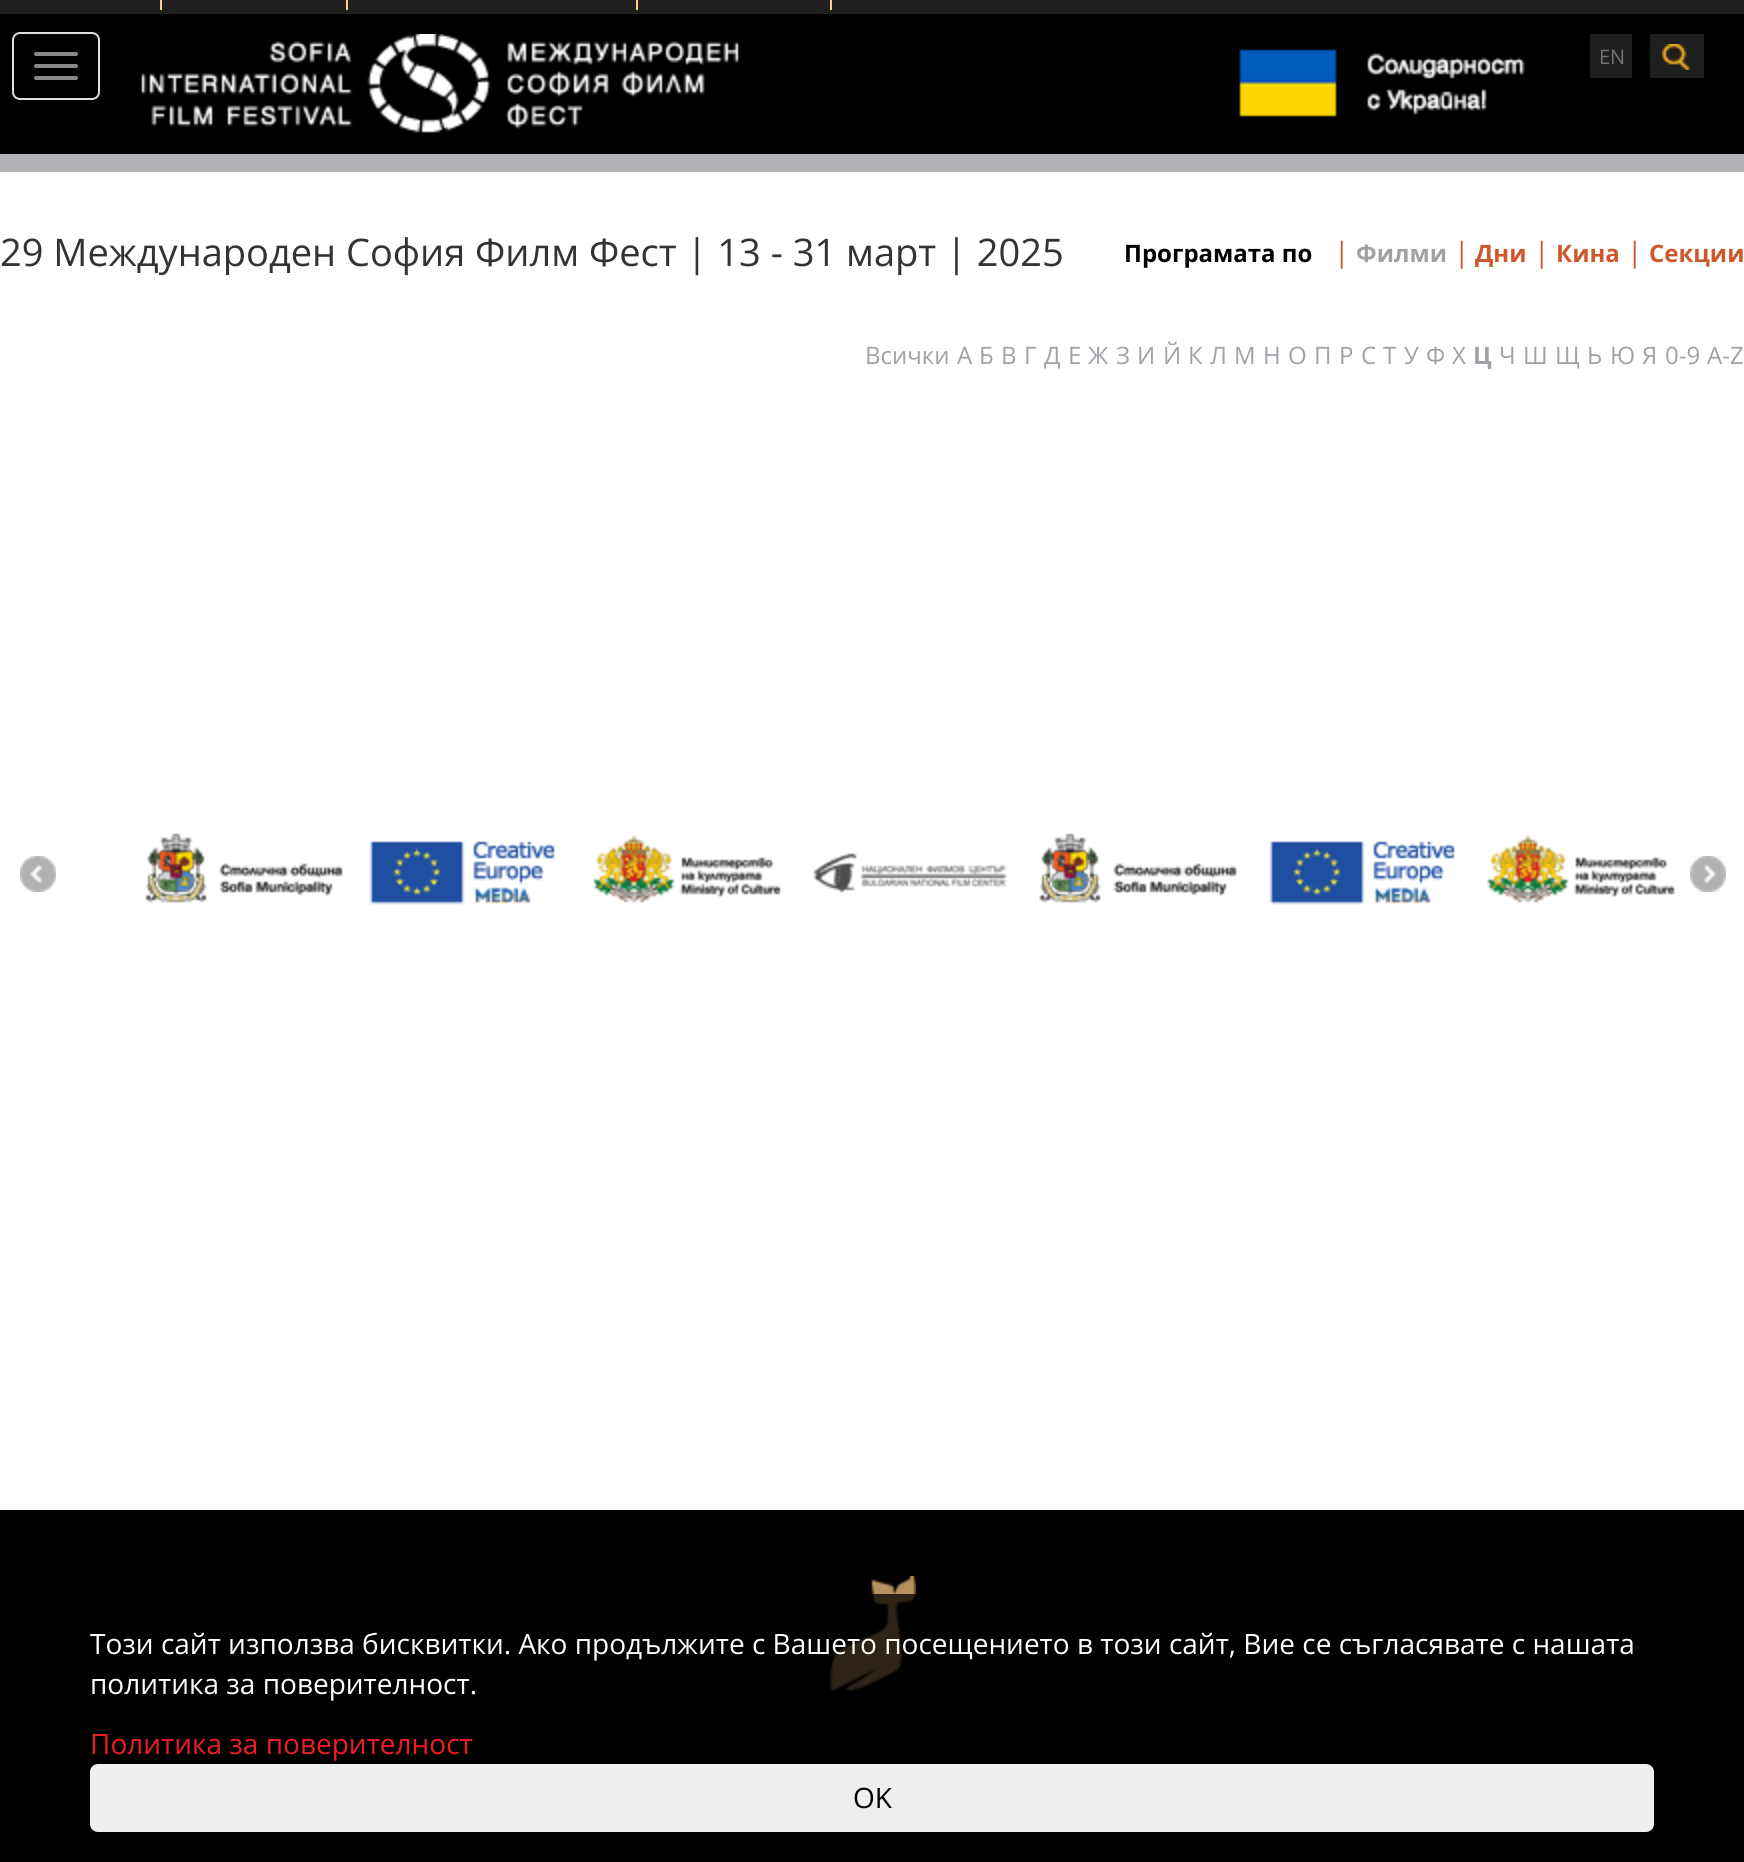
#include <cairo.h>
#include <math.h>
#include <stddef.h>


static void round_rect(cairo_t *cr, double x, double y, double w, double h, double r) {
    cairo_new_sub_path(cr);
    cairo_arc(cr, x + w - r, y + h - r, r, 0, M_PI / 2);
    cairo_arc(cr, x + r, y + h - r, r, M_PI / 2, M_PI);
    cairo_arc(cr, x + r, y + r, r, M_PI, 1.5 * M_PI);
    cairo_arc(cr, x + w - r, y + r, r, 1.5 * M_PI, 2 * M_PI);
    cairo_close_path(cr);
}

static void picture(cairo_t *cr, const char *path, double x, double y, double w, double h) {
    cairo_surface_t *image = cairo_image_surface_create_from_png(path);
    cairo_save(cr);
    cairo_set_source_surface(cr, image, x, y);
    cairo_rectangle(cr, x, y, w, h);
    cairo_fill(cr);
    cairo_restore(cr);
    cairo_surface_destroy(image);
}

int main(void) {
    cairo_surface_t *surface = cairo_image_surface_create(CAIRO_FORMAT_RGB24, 1744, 1862);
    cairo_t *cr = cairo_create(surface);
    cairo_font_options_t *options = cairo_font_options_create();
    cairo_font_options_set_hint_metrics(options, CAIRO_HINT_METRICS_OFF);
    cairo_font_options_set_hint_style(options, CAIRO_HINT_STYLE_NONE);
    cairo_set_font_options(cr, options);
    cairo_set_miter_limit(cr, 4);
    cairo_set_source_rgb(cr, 1, 1, 1);
    cairo_paint(cr);
    cairo_set_source_rgb(cr, 0, 0, 0);
    cairo_rectangle(cr, 0, 14, 1744, 140);
    cairo_fill(cr);
    cairo_set_source_rgb(cr, 0.122, 0.122, 0.122);
    cairo_rectangle(cr, 0, 0, 1744, 14);
    cairo_fill(cr);
    cairo_set_source_rgb(cr, 0.969, 0.808, 0.533);
    cairo_rectangle(cr, 160, 0, 2, 10);
    cairo_fill(cr);
    cairo_rectangle(cr, 346, 0, 2, 10);
    cairo_fill(cr);
    cairo_rectangle(cr, 636, 0, 2, 10);
    cairo_fill(cr);
    cairo_rectangle(cr, 830, 0, 2, 10);
    cairo_fill(cr);
    round_rect(cr, 13, 33, 86, 66, 7);
    cairo_set_source_rgb(cr, 0.867, 0.867, 0.867);
    cairo_stroke(cr);
    cairo_set_source_rgb(cr, 0.533, 0.533, 0.533);
    round_rect(cr, 34, 52, 44, 4, 2);
    cairo_fill(cr);
    round_rect(cr, 34, 64, 44, 4, 2);
    cairo_fill(cr);
    round_rect(cr, 34, 76, 44, 4, 2);
    cairo_fill(cr);
    picture(cr, "img1.png", 141, 34, 598, 99);
    picture(cr, "img2.png", 1239, 49, 286, 68);
    cairo_set_source_rgb(cr, 0.122, 0.122, 0.122);
    cairo_rectangle(cr, 1590, 34, 42, 44);
    cairo_fill(cr);
    cairo_select_font_face(cr, "Open Sans", CAIRO_FONT_SLANT_NORMAL, CAIRO_FONT_WEIGHT_NORMAL);
    cairo_set_font_size(cr, 20);
    cairo_set_source_rgb(cr, 0.455, 0.455, 0.455);
    cairo_move_to(cr, 1599, 64);
    cairo_show_text(cr, "EN");
    cairo_set_source_rgb(cr, 0.122, 0.122, 0.122);
    cairo_rectangle(cr, 1650, 34, 54, 44);
    cairo_fill(cr);
    picture(cr, "img3.png", 1662, 44, 28, 26);
    cairo_set_source_rgb(cr, 0.702, 0.706, 0.722);
    cairo_rectangle(cr, 0, 154, 1744, 18);
    cairo_fill(cr);
    cairo_set_font_size(cr, 38);
    cairo_set_source_rgb(cr, 0.2, 0.2, 0.2);
    cairo_move_to(cr, 0, 266);
    cairo_show_text(cr, "29 Международен София Филм Фест | 13 - 31 март | 2025");
    cairo_select_font_face(cr, "Open Sans", CAIRO_FONT_SLANT_NORMAL, CAIRO_FONT_WEIGHT_BOLD);
    cairo_set_font_size(cr, 24);
    cairo_set_source_rgb(cr, 0, 0, 0);
    cairo_move_to(cr, 1124, 262);
    cairo_show_text(cr, "Програмата по");
    cairo_select_font_face(cr, "Open Sans", CAIRO_FONT_SLANT_NORMAL, CAIRO_FONT_WEIGHT_NORMAL);
    cairo_set_font_size(cr, 28);
    cairo_set_source_rgb(cr, 0.812, 0.345, 0.169);
    cairo_move_to(cr, 1334, 262);
    cairo_show_text(cr, "|");
    cairo_select_font_face(cr, "Open Sans", CAIRO_FONT_SLANT_NORMAL, CAIRO_FONT_WEIGHT_BOLD);
    cairo_set_font_size(cr, 24);
    cairo_set_source_rgb(cr, 0.627, 0.631, 0.631);
    cairo_move_to(cr, 1356, 262);
    cairo_show_text(cr, "Филми");
    cairo_select_font_face(cr, "Open Sans", CAIRO_FONT_SLANT_NORMAL, CAIRO_FONT_WEIGHT_NORMAL);
    cairo_set_font_size(cr, 28);
    cairo_set_source_rgb(cr, 0.812, 0.345, 0.169);
    cairo_move_to(cr, 1454, 262);
    cairo_show_text(cr, "|");
    cairo_select_font_face(cr, "Open Sans", CAIRO_FONT_SLANT_NORMAL, CAIRO_FONT_WEIGHT_BOLD);
    cairo_set_font_size(cr, 24);
    cairo_move_to(cr, 1475, 262);
    cairo_show_text(cr, "Дни");
    cairo_select_font_face(cr, "Open Sans", CAIRO_FONT_SLANT_NORMAL, CAIRO_FONT_WEIGHT_NORMAL);
    cairo_set_font_size(cr, 28);
    cairo_move_to(cr, 1534, 262);
    cairo_show_text(cr, "|");
    cairo_select_font_face(cr, "Open Sans", CAIRO_FONT_SLANT_NORMAL, CAIRO_FONT_WEIGHT_BOLD);
    cairo_set_font_size(cr, 24);
    cairo_move_to(cr, 1556, 262);
    cairo_show_text(cr, "Кина");
    cairo_select_font_face(cr, "Open Sans", CAIRO_FONT_SLANT_NORMAL, CAIRO_FONT_WEIGHT_NORMAL);
    cairo_set_font_size(cr, 28);
    cairo_move_to(cr, 1627, 262);
    cairo_show_text(cr, "|");
    cairo_select_font_face(cr, "Open Sans", CAIRO_FONT_SLANT_NORMAL, CAIRO_FONT_WEIGHT_BOLD);
    cairo_set_font_size(cr, 24);
    cairo_move_to(cr, 1649, 262);
    cairo_show_text(cr, "Секции");
    cairo_select_font_face(cr, "Open Sans", CAIRO_FONT_SLANT_NORMAL, CAIRO_FONT_WEIGHT_NORMAL);
    cairo_set_source_rgb(cr, 0.62, 0.635, 0.655);
    cairo_move_to(cr, 865, 364);
    cairo_show_text(cr, "Всички");
    cairo_move_to(cr, 957, 364);
    cairo_show_text(cr, "А");
    cairo_move_to(cr, 979, 364);
    cairo_show_text(cr, "Б");
    cairo_move_to(cr, 1001, 364);
    cairo_show_text(cr, "В");
    cairo_move_to(cr, 1024, 364);
    cairo_show_text(cr, "Г");
    cairo_move_to(cr, 1044, 364);
    cairo_show_text(cr, "Д");
    cairo_move_to(cr, 1068, 364);
    cairo_show_text(cr, "Е");
    cairo_move_to(cr, 1088, 364);
    cairo_show_text(cr, "Ж");
    cairo_move_to(cr, 1116, 364);
    cairo_show_text(cr, "З");
    cairo_move_to(cr, 1137, 364);
    cairo_show_text(cr, "И");
    cairo_move_to(cr, 1163, 364);
    cairo_show_text(cr, "Й");
    cairo_move_to(cr, 1188, 364);
    cairo_show_text(cr, "К");
    cairo_move_to(cr, 1210, 364);
    cairo_show_text(cr, "Л");
    cairo_move_to(cr, 1234, 364);
    cairo_show_text(cr, "М");
    cairo_move_to(cr, 1263, 364);
    cairo_show_text(cr, "Н");
    cairo_move_to(cr, 1288, 364);
    cairo_show_text(cr, "О");
    cairo_move_to(cr, 1314, 364);
    cairo_show_text(cr, "П");
    cairo_move_to(cr, 1339, 364);
    cairo_show_text(cr, "Р");
    cairo_move_to(cr, 1361, 364);
    cairo_show_text(cr, "С");
    cairo_move_to(cr, 1383, 364);
    cairo_show_text(cr, "Т");
    cairo_move_to(cr, 1404, 364);
    cairo_show_text(cr, "У");
    cairo_move_to(cr, 1426, 364);
    cairo_show_text(cr, "Ф");
    cairo_move_to(cr, 1452, 364);
    cairo_show_text(cr, "Х");
    cairo_select_font_face(cr, "Open Sans", CAIRO_FONT_SLANT_NORMAL, CAIRO_FONT_WEIGHT_BOLD);
    cairo_move_to(cr, 1473, 364);
    cairo_show_text(cr, "Ц");
    cairo_select_font_face(cr, "Open Sans", CAIRO_FONT_SLANT_NORMAL, CAIRO_FONT_WEIGHT_NORMAL);
    cairo_move_to(cr, 1499, 364);
    cairo_show_text(cr, "Ч");
    cairo_move_to(cr, 1523, 364);
    cairo_show_text(cr, "Ш");
    cairo_move_to(cr, 1555, 364);
    cairo_show_text(cr, "Щ");
    cairo_move_to(cr, 1587, 364);
    cairo_show_text(cr, "Ь");
    cairo_move_to(cr, 1610, 364);
    cairo_show_text(cr, "Ю");
    cairo_move_to(cr, 1642, 364);
    cairo_show_text(cr, "Я");
    cairo_move_to(cr, 1665, 364);
    cairo_show_text(cr, "0-9");
    cairo_move_to(cr, 1707, 364);
    cairo_show_text(cr, "A-Z");
    picture(cr, "img4.png", 20, 856, 36, 36);
    picture(cr, "img5.png", 145, 833, 198, 70);
    picture(cr, "img6.png", 369, 841, 186, 64);
    picture(cr, "img7.png", 593, 835, 188, 68);
    picture(cr, "img8.png", 813, 853, 194, 40);
    picture(cr, "img5.png", 1039, 833, 198, 70);
    picture(cr, "img6.png", 1269, 841, 186, 64);
    picture(cr, "img7.png", 1487, 835, 188, 68);
    picture(cr, "img9.png", 1690, 856, 36, 36);
    cairo_set_source_rgb(cr, 0, 0, 0);
    cairo_rectangle(cr, 0, 1510, 1744, 352);
    cairo_fill(cr);
    picture(cr, "img10.png", 830, 1576, 86, 115);
    cairo_set_source_rgba(cr, 0, 0, 0, 0.75);
    cairo_rectangle(cr, 830, 1594, 86, 97);
    cairo_fill(cr);
    cairo_set_font_size(cr, 28);
    cairo_set_source_rgb(cr, 1, 1, 1);
    cairo_move_to(cr, 90, 1654);
    cairo_show_text(cr, "Този сайт използва бисквитки. Ако продължите с Вашето посещението в този сайт, Вие се съгласявате с нашата");
    cairo_move_to(cr, 90, 1694);
    cairo_show_text(cr, "политика за поверителност.");
    cairo_set_source_rgb(cr, 0.937, 0.11, 0.149);
    cairo_move_to(cr, 90, 1754);
    cairo_show_text(cr, "Политика за поверителност");
    cairo_set_source_rgb(cr, 0.937, 0.937, 0.937);
    round_rect(cr, 90, 1764, 1564, 68, 8);
    cairo_fill(cr);
    cairo_set_source_rgb(cr, 0, 0, 0);
    cairo_move_to(cr, 853, 1808);
    cairo_show_text(cr, "OK");
    cairo_surface_write_to_png(surface, "page.png");
    cairo_font_options_destroy(options);
    cairo_destroy(cr);
    cairo_surface_destroy(surface);
    return 0;
}
